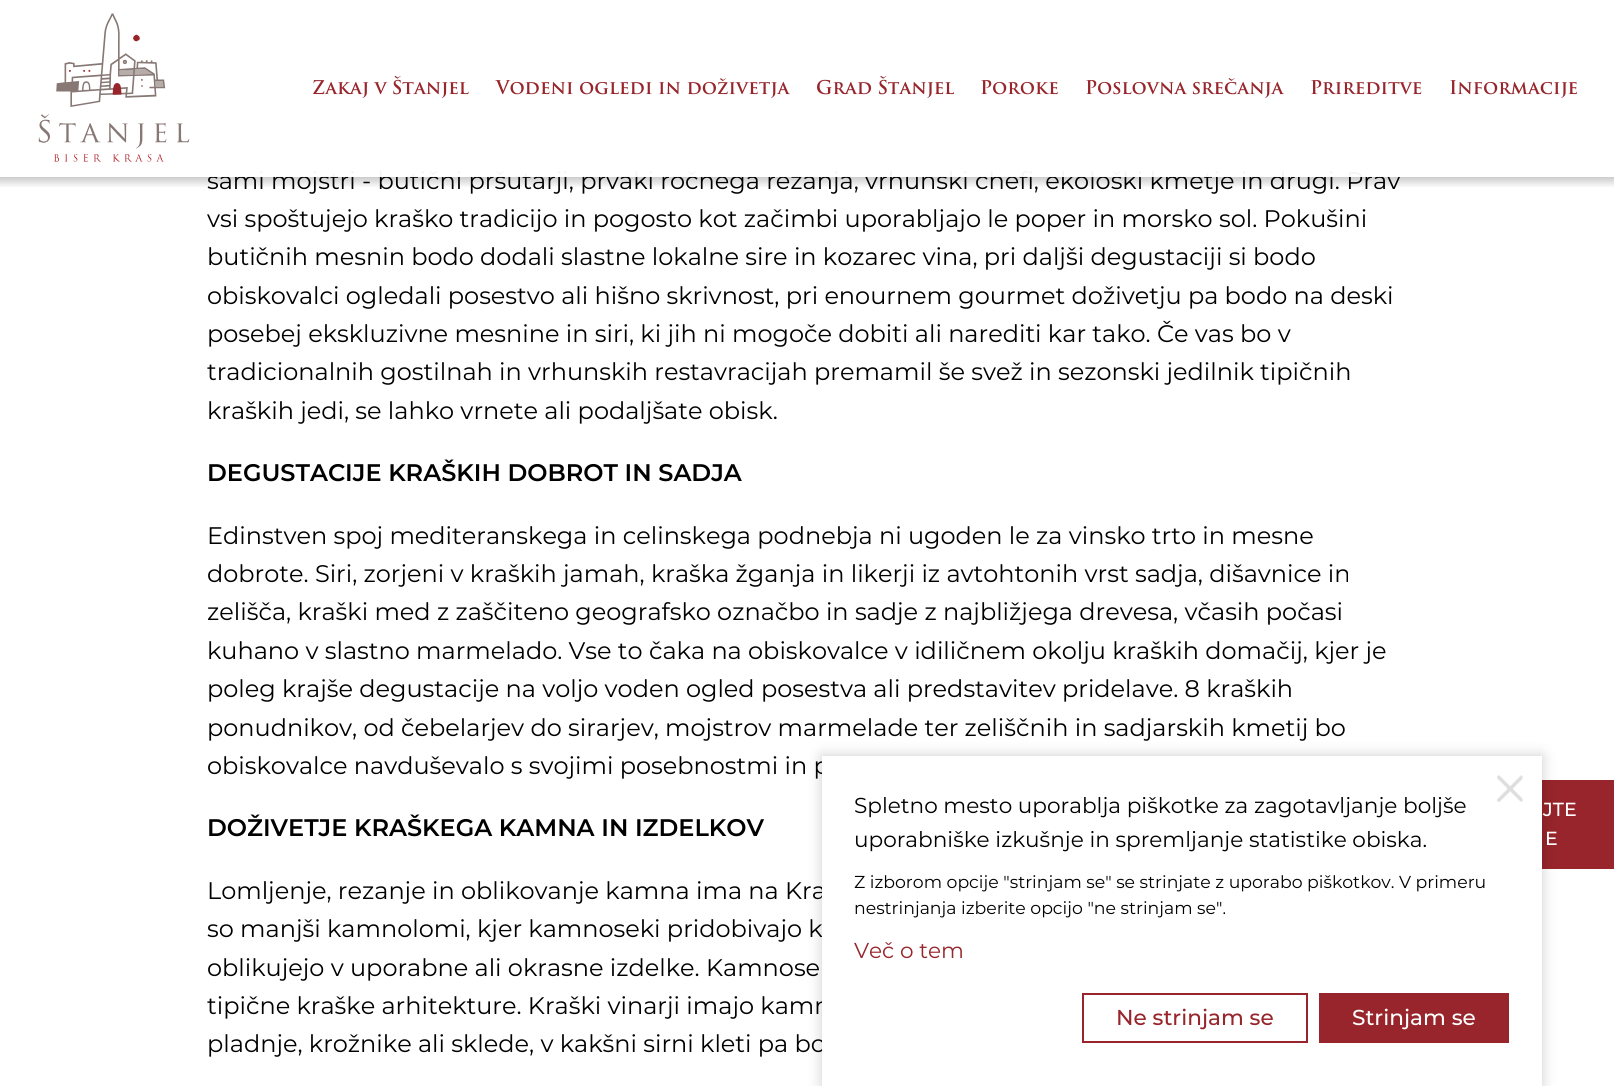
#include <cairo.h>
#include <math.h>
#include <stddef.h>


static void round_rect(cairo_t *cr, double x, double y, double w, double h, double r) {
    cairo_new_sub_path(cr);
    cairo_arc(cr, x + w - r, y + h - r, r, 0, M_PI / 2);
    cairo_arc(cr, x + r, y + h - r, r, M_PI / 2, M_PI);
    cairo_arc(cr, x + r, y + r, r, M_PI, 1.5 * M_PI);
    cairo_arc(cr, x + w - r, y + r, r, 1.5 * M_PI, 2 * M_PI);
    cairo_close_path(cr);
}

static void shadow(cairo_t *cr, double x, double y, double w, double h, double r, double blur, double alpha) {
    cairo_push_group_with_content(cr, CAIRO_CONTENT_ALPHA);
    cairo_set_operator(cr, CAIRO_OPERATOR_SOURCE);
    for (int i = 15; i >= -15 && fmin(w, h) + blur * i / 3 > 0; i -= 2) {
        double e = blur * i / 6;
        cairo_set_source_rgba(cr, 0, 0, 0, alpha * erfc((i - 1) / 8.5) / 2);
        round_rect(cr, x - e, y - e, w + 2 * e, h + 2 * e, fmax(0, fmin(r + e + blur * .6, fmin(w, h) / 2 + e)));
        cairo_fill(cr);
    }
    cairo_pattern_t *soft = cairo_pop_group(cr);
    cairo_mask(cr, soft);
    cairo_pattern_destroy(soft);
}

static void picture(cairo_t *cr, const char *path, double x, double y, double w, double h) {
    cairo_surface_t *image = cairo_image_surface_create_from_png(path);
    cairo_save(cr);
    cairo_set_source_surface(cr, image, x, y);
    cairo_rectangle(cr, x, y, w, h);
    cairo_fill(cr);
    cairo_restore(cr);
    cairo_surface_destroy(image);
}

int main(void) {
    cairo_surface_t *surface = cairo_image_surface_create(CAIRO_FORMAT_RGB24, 1614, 1086);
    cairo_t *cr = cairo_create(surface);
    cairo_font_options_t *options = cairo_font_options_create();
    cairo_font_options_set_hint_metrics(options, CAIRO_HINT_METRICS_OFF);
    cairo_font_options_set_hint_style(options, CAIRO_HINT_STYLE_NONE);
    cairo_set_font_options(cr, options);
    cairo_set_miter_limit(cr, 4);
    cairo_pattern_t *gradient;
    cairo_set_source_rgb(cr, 1, 1, 1);
    cairo_paint(cr);
    cairo_select_font_face(cr, "Montserrat", CAIRO_FONT_SLANT_NORMAL, CAIRO_FONT_WEIGHT_NORMAL);
    cairo_set_font_size(cr, 24);
    cairo_set_source_rgb(cr, 0, 0, 0);
    cairo_move_to(cr, 207, 189);
    cairo_show_text(cr, "sami mojstri - butični pršutarji, prvaki ročnega rezanja, vrhunski chefi, ekološki kmetje in drugi. Prav");
    cairo_set_source_rgba(cr, 1, 1, 1, 0.95);
    cairo_rectangle(cr, 210, 171, 1191, 6);
    cairo_fill(cr);
    picture(cr, "img1.png", 38, 13, 152, 149);
    cairo_select_font_face(cr, "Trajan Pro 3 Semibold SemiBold", CAIRO_FONT_SLANT_NORMAL, CAIRO_FONT_WEIGHT_NORMAL);
    cairo_set_font_size(cr, 18.5);
    cairo_set_source_rgb(cr, 0.592, 0.145, 0.169);
    cairo_move_to(cr, 312, 94);
    cairo_show_text(cr, "Zakaj v Štanjel");
    cairo_move_to(cr, 496, 94);
    cairo_show_text(cr, "Vodeni ogledi in doživetja");
    cairo_move_to(cr, 816, 94);
    cairo_show_text(cr, "Grad Štanjel");
    cairo_move_to(cr, 980, 94);
    cairo_show_text(cr, "Poroke");
    cairo_move_to(cr, 1085, 94);
    cairo_show_text(cr, "Poslovna srečanja");
    cairo_move_to(cr, 1310, 94);
    cairo_show_text(cr, "Prireditve");
    cairo_move_to(cr, 1449, 94);
    cairo_show_text(cr, "Informacije");
    gradient = cairo_pattern_create_linear(807, 177, 807, 188);
    cairo_pattern_add_color_stop_rgba(gradient, 0, 0, 0, 0, 0.2);
    cairo_pattern_add_color_stop_rgba(gradient, 1, 0, 0, 0, 0);
    cairo_set_source(cr, gradient);
    cairo_pattern_destroy(gradient);
    cairo_rectangle(cr, 0, 177, 1614, 10);
    cairo_fill(cr);
    cairo_select_font_face(cr, "Montserrat", CAIRO_FONT_SLANT_NORMAL, CAIRO_FONT_WEIGHT_NORMAL);
    cairo_set_font_size(cr, 24);
    cairo_set_source_rgb(cr, 0, 0, 0);
    cairo_move_to(cr, 207, 227);
    cairo_show_text(cr, "vsi spoštujejo kraško tradicijo in pogosto kot začimbi uporabljajo le poper in morsko sol. Pokušini");
    cairo_move_to(cr, 207, 265);
    cairo_show_text(cr, "butičnih mesnin bodo dodali slastne lokalne sire in kozarec vina, pri daljši degustaciji si bodo");
    cairo_move_to(cr, 207, 304);
    cairo_show_text(cr, "obiskovalci ogledali posestvo ali hišno skrivnost, pri enournem gourmet doživetju pa bodo na deski");
    cairo_move_to(cr, 207, 342);
    cairo_show_text(cr, "posebej ekskluzivne mesnine in siri, ki jih ni mogoče dobiti ali narediti kar tako. Če vas bo v");
    cairo_move_to(cr, 207, 380);
    cairo_show_text(cr, "tradicionalnih gostilnah in vrhunskih restavracijah premamil še svež in sezonski jedilnik tipičnih");
    cairo_move_to(cr, 207, 419);
    cairo_show_text(cr, "kraških jedi, se lahko vrnete ali podaljšate obisk.");
    cairo_select_font_face(cr, "Montserrat SemiBold", CAIRO_FONT_SLANT_NORMAL, CAIRO_FONT_WEIGHT_NORMAL);
    cairo_move_to(cr, 207, 481);
    cairo_show_text(cr, "DEGUSTACIJE KRAŠKIH DOBROT IN SADJA");
    cairo_select_font_face(cr, "Montserrat", CAIRO_FONT_SLANT_NORMAL, CAIRO_FONT_WEIGHT_NORMAL);
    cairo_move_to(cr, 207, 544);
    cairo_show_text(cr, "Edinstven spoj mediteranskega in celinskega podnebja ni ugoden le za vinsko trto in mesne");
    cairo_move_to(cr, 207, 582);
    cairo_show_text(cr, "dobrote. Siri, zorjeni v kraških jamah, kraška žganja in likerji iz avtohtonih vrst sadja, dišavnice in");
    cairo_move_to(cr, 207, 620);
    cairo_show_text(cr, "zelišča, kraški med z zaščiteno geografsko označbo in sadje z najbližjega drevesa, včasih počasi");
    cairo_move_to(cr, 207, 659);
    cairo_show_text(cr, "kuhano v slastno marmelado. Vse to čaka na obiskovalce v idiličnem okolju kraških domačij, kjer je");
    cairo_move_to(cr, 207, 697);
    cairo_show_text(cr, "poleg krajše degustacije na voljo voden ogled posestva ali predstavitev pridelave. 8 kraških");
    cairo_move_to(cr, 207, 736);
    cairo_show_text(cr, "ponudnikov, od čebelarjev do sirarjev, mojstrov marmelade ter zeliščnih in sadjarskih kmetij bo");
    cairo_move_to(cr, 207, 774);
    cairo_show_text(cr, "obiskovalce navduševalo s svojimi posebnostmi in p");
    cairo_select_font_face(cr, "Montserrat SemiBold", CAIRO_FONT_SLANT_NORMAL, CAIRO_FONT_WEIGHT_NORMAL);
    cairo_move_to(cr, 207, 836);
    cairo_show_text(cr, "DOŽIVETJE KRAŠKEGA KAMNA IN IZDELKOV");
    cairo_select_font_face(cr, "Montserrat", CAIRO_FONT_SLANT_NORMAL, CAIRO_FONT_WEIGHT_NORMAL);
    cairo_move_to(cr, 207, 899);
    cairo_show_text(cr, "Lomljenje, rezanje in oblikovanje kamna ima na Kra");
    cairo_move_to(cr, 207, 937);
    cairo_show_text(cr, "so manjši kamnolomi, kjer kamnoseki pridobivajo k");
    cairo_move_to(cr, 207, 976);
    cairo_show_text(cr, "oblikujejo v uporabne ali okrasne izdelke. Kamnose");
    cairo_move_to(cr, 207, 1014);
    cairo_show_text(cr, "tipične kraške arhitekture. Kraški vinarji imajo kamn");
    cairo_move_to(cr, 207, 1052);
    cairo_show_text(cr, "pladnje, krožnike ali sklede, v kakšni sirni kleti pa bo");
    cairo_set_source_rgb(cr, 1, 1, 1);
    cairo_rectangle(cr, 822, 761, 7, 290);
    cairo_fill(cr);
    cairo_set_source_rgb(cr, 0.592, 0.145, 0.169);
    cairo_rectangle(cr, 1542, 780, 72, 89);
    cairo_fill(cr);
    cairo_save(cr);
    cairo_set_fill_rule(cr, CAIRO_FILL_RULE_EVEN_ODD);
    cairo_new_path(cr);
    cairo_move_to(cr, 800, 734);
    cairo_line_to(cr, 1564, 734);
    cairo_line_to(cr, 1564, 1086);
    cairo_line_to(cr, 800, 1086);
    cairo_close_path(cr);
    cairo_move_to(cr, 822, 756);
    cairo_line_to(cr, 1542, 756);
    cairo_line_to(cr, 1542, 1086);
    cairo_line_to(cr, 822, 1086);
    cairo_close_path(cr);
    cairo_clip(cr);
    cairo_set_source_rgb(cr, 0, 0, 0);
    shadow(cr, 822, 756, 720, 330, 0, 7, 0.2);
    cairo_restore(cr);
    picture(cr, "img2.png", 1497, 775, 26, 27);
    cairo_set_font_size(cr, 21.6);
    cairo_set_source_rgb(cr, 0, 0, 0);
    cairo_move_to(cr, 854, 813);
    cairo_show_text(cr, "Spletno mesto uporablja piškotke za zagotavljanje boljše");
    cairo_move_to(cr, 854, 847);
    cairo_show_text(cr, "uporabniške izkušnje in spremljanje statistike obiska.");
    cairo_set_font_size(cr, 17.3);
    cairo_move_to(cr, 854, 888);
    cairo_show_text(cr, "Z izborom opcije \"strinjam se\" se strinjate z uporabo piškotkov. V primeru");
    cairo_move_to(cr, 854, 914);
    cairo_show_text(cr, "nestrinjanja izberite opcijo \"ne strinjam se\".");
    cairo_set_font_size(cr, 21.6);
    cairo_set_source_rgb(cr, 0.592, 0.145, 0.169);
    cairo_move_to(cr, 854, 958);
    cairo_show_text(cr, "Več o tem");
    cairo_rectangle(cr, 1083, 994, 224, 48);
    cairo_stroke(cr);
    cairo_select_font_face(cr, "Montserrat Medium", CAIRO_FONT_SLANT_NORMAL, CAIRO_FONT_WEIGHT_NORMAL);
    cairo_move_to(cr, 1116, 1025);
    cairo_show_text(cr, "Ne strinjam se");
    cairo_rectangle(cr, 1319, 993, 190, 50);
    cairo_fill(cr);
    cairo_set_source_rgb(cr, 1, 1, 1);
    cairo_move_to(cr, 1352, 1025);
    cairo_show_text(cr, "Strinjam se");
    cairo_set_font_size(cr, 19);
    cairo_move_to(cr, 1543, 816);
    cairo_show_text(cr, "JTE");
    cairo_move_to(cr, 1545, 845);
    cairo_show_text(cr, "E");
    cairo_surface_write_to_png(surface, "page.png");
    cairo_font_options_destroy(options);
    cairo_destroy(cr);
    cairo_surface_destroy(surface);
    return 0;
}
